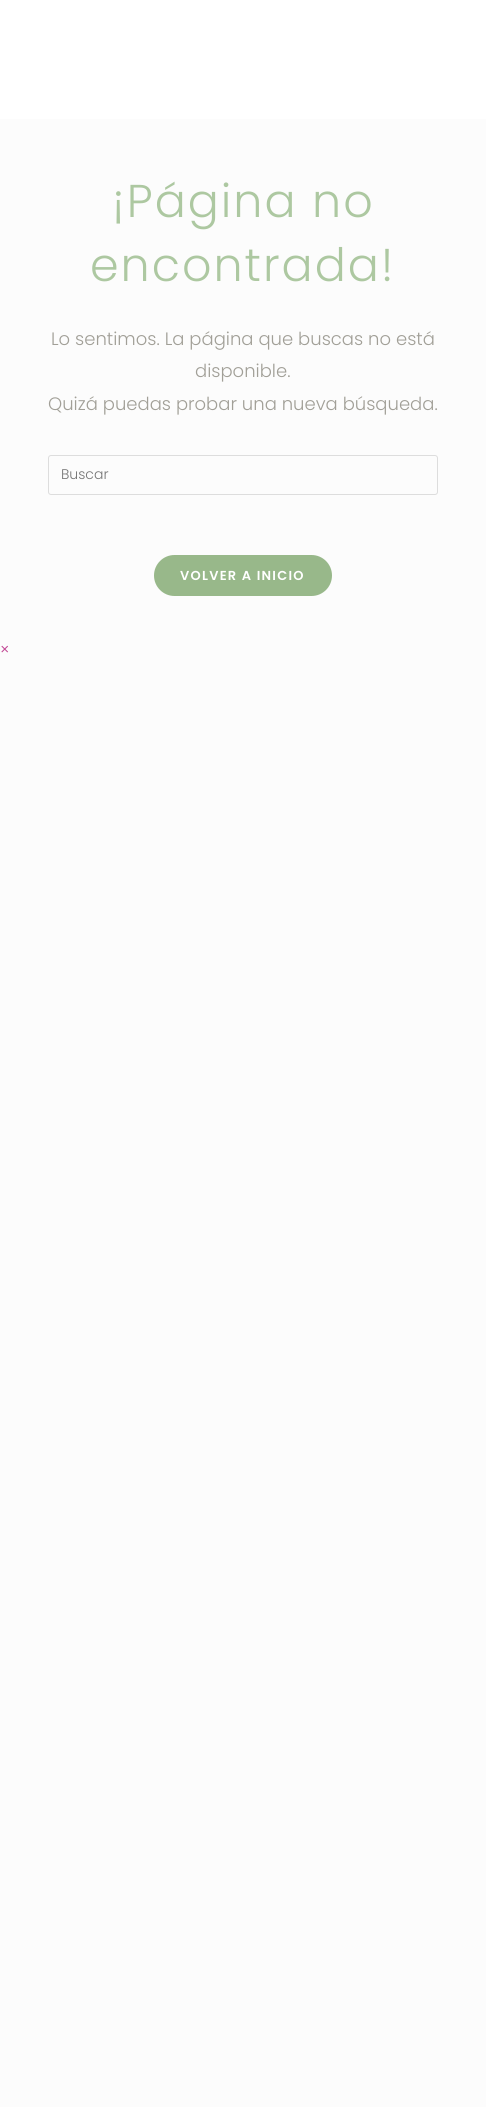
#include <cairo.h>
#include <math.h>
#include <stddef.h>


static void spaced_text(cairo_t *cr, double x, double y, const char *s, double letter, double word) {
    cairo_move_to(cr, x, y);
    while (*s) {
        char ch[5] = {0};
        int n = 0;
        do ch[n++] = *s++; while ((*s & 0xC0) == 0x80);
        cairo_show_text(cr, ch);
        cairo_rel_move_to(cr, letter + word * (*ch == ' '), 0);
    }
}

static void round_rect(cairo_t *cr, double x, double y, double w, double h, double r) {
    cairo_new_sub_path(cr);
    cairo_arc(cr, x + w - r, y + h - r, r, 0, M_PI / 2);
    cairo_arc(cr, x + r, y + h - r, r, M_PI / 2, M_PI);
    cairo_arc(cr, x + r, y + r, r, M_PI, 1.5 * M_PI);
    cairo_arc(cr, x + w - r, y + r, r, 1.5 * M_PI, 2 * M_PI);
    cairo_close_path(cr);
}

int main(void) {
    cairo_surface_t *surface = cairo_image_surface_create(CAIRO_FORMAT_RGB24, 486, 2107);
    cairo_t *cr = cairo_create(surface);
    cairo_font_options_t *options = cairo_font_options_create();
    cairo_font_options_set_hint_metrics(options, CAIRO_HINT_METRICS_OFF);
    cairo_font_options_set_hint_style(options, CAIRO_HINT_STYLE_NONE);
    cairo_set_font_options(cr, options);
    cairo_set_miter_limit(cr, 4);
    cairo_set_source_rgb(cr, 0.988, 0.988, 0.988);
    cairo_paint(cr);
    cairo_set_source_rgb(cr, 1, 1, 1);
    cairo_rectangle(cr, 0, 0, 486, 119);
    cairo_fill(cr);
    cairo_select_font_face(cr, "Poppins Light", CAIRO_FONT_SLANT_NORMAL, CAIRO_FONT_WEIGHT_NORMAL);
    cairo_set_font_size(cr, 46);
    cairo_set_source_rgb(cr, 0.678, 0.784, 0.631);
    spaced_text(cr, 112, 217, "¡Página no", 2, 0);
    spaced_text(cr, 90, 281, "encontrada!", 2, 0);
    cairo_set_font_size(cr, 18);
    cairo_set_source_rgb(cr, 0.631, 0.624, 0.592);
    cairo_move_to(cr, 51, 345);
    cairo_show_text(cr, "Lo sentimos. La página que buscas no está");
    cairo_move_to(cr, 195, 377);
    cairo_show_text(cr, "disponible.");
    cairo_move_to(cr, 48, 410);
    cairo_show_text(cr, "Quizá puedas probar una nueva búsqueda.");
    round_rect(cr, 48.5, 455.5, 389, 39, 2.5);
    cairo_set_source_rgb(cr, 0.867, 0.867, 0.867);
    cairo_set_line_width(cr, 1);
    cairo_stroke(cr);
    cairo_set_font_size(cr, 14);
    cairo_set_source_rgb(cr, 0.459, 0.459, 0.459);
    cairo_move_to(cr, 61, 479);
    cairo_show_text(cr, "Buscar");
    cairo_set_source_rgb(cr, 0.596, 0.722, 0.541);
    round_rect(cr, 154, 555, 178, 41, 20.5);
    cairo_fill(cr);
    cairo_select_font_face(cr, "Poppins SemiBold", CAIRO_FONT_SLANT_NORMAL, CAIRO_FONT_WEIGHT_NORMAL);
    cairo_set_font_size(cr, 13);
    cairo_set_source_rgb(cr, 1, 1, 1);
    spaced_text(cr, 180, 580, "VOLVER A INICIO", 1.25, 0);
    cairo_select_font_face(cr, "Poppins Light", CAIRO_FONT_SLANT_NORMAL, CAIRO_FONT_WEIGHT_NORMAL);
    cairo_set_font_size(cr, 16);
    cairo_set_source_rgb(cr, 0.757, 0.271, 0.576);
    cairo_move_to(cr, 0, 655);
    cairo_show_text(cr, "×");
    cairo_surface_write_to_png(surface, "page.png");
    cairo_font_options_destroy(options);
    cairo_destroy(cr);
    cairo_surface_destroy(surface);
    return 0;
}
